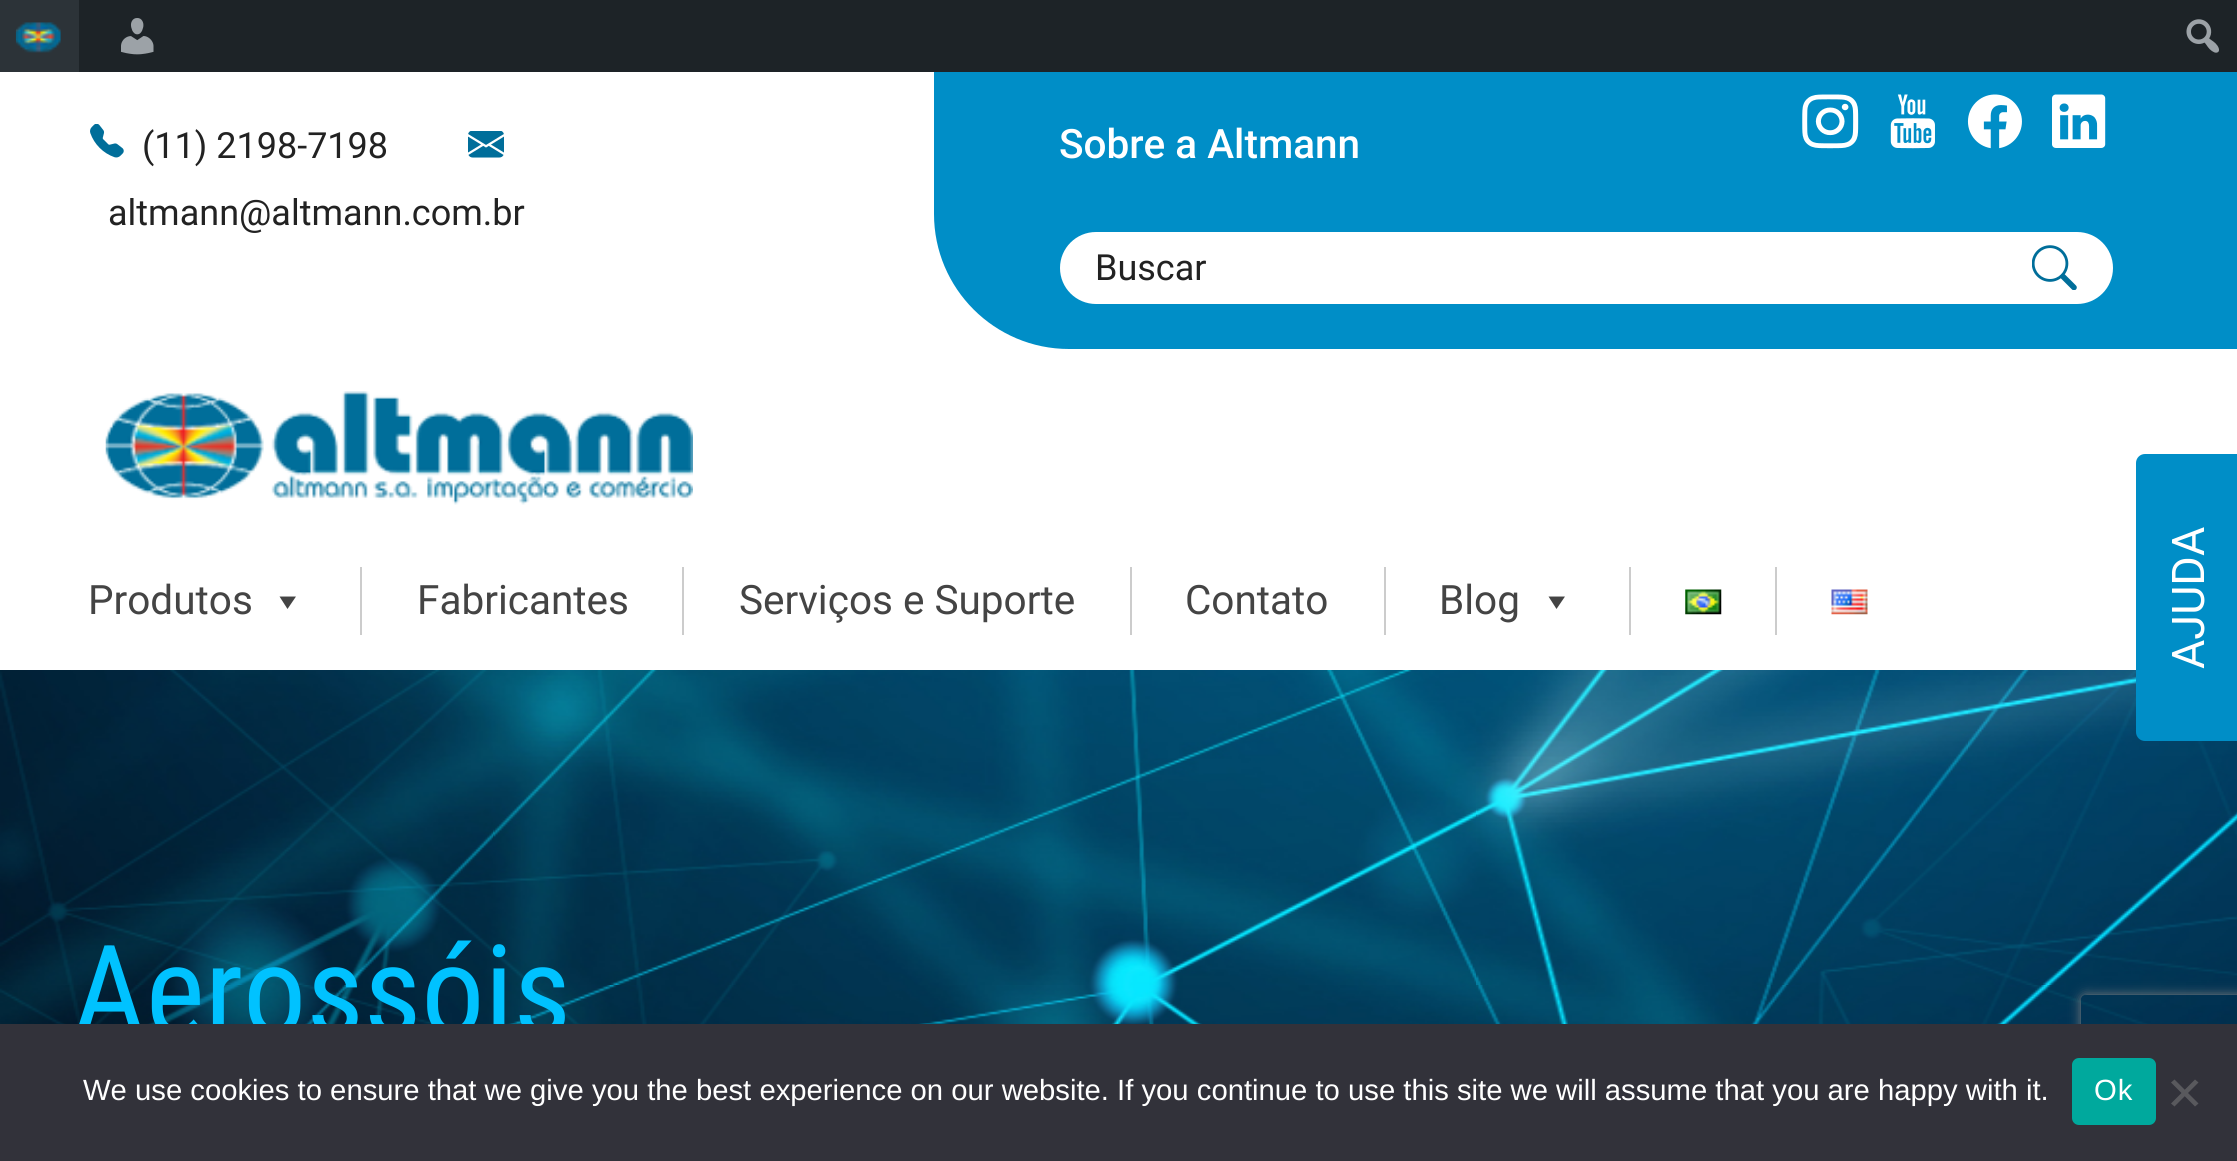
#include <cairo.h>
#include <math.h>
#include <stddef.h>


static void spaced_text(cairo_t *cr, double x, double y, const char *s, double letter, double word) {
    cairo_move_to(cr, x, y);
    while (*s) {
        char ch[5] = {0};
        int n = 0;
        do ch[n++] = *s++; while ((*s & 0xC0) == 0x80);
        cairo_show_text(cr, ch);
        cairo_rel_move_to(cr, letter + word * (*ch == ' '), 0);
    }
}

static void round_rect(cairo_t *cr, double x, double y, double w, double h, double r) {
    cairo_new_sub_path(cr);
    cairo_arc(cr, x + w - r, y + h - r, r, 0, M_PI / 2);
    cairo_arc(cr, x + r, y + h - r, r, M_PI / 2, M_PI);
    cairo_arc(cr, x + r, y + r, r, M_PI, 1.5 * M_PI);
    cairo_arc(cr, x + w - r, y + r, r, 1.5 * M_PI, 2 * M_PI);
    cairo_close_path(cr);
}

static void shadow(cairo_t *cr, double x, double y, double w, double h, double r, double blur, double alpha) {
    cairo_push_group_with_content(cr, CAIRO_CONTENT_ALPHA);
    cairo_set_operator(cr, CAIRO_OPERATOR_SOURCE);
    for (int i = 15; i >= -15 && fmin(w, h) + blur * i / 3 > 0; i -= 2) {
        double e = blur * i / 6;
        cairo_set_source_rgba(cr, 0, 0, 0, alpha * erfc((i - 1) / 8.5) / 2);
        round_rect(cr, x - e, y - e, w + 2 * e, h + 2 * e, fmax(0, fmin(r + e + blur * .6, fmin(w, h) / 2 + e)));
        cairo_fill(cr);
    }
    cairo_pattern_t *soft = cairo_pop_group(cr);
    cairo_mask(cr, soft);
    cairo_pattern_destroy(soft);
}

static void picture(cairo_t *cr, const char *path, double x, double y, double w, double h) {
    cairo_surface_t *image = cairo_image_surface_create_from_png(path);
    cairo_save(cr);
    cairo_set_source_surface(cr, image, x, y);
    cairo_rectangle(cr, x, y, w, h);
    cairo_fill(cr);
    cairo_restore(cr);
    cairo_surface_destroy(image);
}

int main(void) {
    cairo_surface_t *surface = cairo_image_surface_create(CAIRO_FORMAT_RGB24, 2237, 1161);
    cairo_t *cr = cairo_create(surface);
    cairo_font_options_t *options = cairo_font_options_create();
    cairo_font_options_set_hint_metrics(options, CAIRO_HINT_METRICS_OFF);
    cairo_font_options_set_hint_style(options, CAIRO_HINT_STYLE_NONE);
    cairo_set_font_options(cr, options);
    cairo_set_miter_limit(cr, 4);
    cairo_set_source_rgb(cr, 1, 1, 1);
    cairo_paint(cr);
    cairo_set_source_rgb(cr, 0.114, 0.137, 0.153);
    cairo_rectangle(cr, 79, 0, 2158, 72);
    cairo_fill(cr);
    cairo_set_source_rgb(cr, 0.173, 0.2, 0.22);
    cairo_rectangle(cr, 0, 0, 79, 72);
    cairo_fill(cr);
    picture(cr, "img1.png", 15, 22, 46, 31);
    picture(cr, "img2.png", 121, 18, 33, 37);
    picture(cr, "img3.png", 2186, 19, 33, 34);
    picture(cr, "img4.png", 90, 124, 34, 34);
    cairo_select_font_face(cr, "Roboto", CAIRO_FONT_SLANT_NORMAL, CAIRO_FONT_WEIGHT_NORMAL);
    cairo_set_font_size(cr, 36);
    cairo_set_source_rgb(cr, 0.133, 0.133, 0.133);
    cairo_move_to(cr, 142, 158);
    cairo_show_text(cr, "(11) 2198-7198");
    picture(cr, "img5.png", 468, 131, 36, 27);
    cairo_move_to(cr, 108, 225);
    cairo_show_text(cr, "altmann@altmann.com.br");
    cairo_set_source_rgb(cr, 0, 0.557, 0.78);
    cairo_new_path(cr);
    cairo_move_to(cr, 934, 72);
    cairo_line_to(cr, 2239, 72);
    cairo_line_to(cr, 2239, 349);
    cairo_line_to(cr, 1069, 349);
    cairo_curve_to(cr, 994.5, 349, 934, 288.5, 934, 214);
    cairo_close_path(cr);
    cairo_fill(cr);
    cairo_select_font_face(cr, "Roboto Medium", CAIRO_FONT_SLANT_NORMAL, CAIRO_FONT_WEIGHT_NORMAL);
    cairo_set_font_size(cr, 40.5);
    cairo_set_source_rgb(cr, 1, 1, 1);
    cairo_move_to(cr, 1059, 158);
    cairo_show_text(cr, "Sobre a Altmann");
    picture(cr, "img6.png", 1802, 94, 57, 55);
    picture(cr, "img7.png", 1890, 94, 45, 55);
    picture(cr, "img8.png", 1967, 94, 55, 55);
    picture(cr, "img9.png", 2052, 94, 54, 54);
    round_rect(cr, 1060, 232, 1053, 72, 36);
    cairo_fill(cr);
    cairo_select_font_face(cr, "Roboto", CAIRO_FONT_SLANT_NORMAL, CAIRO_FONT_WEIGHT_NORMAL);
    cairo_set_font_size(cr, 36);
    cairo_set_source_rgb(cr, 0.133, 0.133, 0.133);
    cairo_move_to(cr, 1095, 280);
    cairo_show_text(cr, "Buscar");
    picture(cr, "img10.png", 2032, 245, 45, 45);
    picture(cr, "img11.png", 105, 391, 588, 114);
    cairo_set_font_size(cr, 40.5);
    cairo_set_source_rgb(cr, 0.267, 0.267, 0.267);
    cairo_move_to(cr, 88, 614);
    cairo_show_text(cr, "Produtos");
    cairo_new_path(cr);
    cairo_move_to(cr, 296, 596.5);
    cairo_line_to(cr, 287.5, 609);
    cairo_line_to(cr, 279.5, 596.5);
    cairo_close_path(cr);
    cairo_fill(cr);
    cairo_set_source_rgb(cr, 0.8, 0.8, 0.8);
    cairo_rectangle(cr, 360, 567, 2, 68);
    cairo_fill(cr);
    cairo_set_source_rgb(cr, 0.267, 0.267, 0.267);
    cairo_move_to(cr, 417, 614);
    cairo_show_text(cr, "Fabricantes");
    cairo_set_source_rgb(cr, 0.8, 0.8, 0.8);
    cairo_rectangle(cr, 682, 567, 2, 68);
    cairo_fill(cr);
    cairo_set_source_rgb(cr, 0.267, 0.267, 0.267);
    cairo_move_to(cr, 739, 614);
    cairo_show_text(cr, "Serviços e Suporte");
    cairo_set_source_rgb(cr, 0.8, 0.8, 0.8);
    cairo_rectangle(cr, 1130, 567, 2, 68);
    cairo_fill(cr);
    cairo_set_source_rgb(cr, 0.267, 0.267, 0.267);
    cairo_move_to(cr, 1185, 614);
    cairo_show_text(cr, "Contato");
    cairo_set_source_rgb(cr, 0.8, 0.8, 0.8);
    cairo_rectangle(cr, 1384, 567, 2, 68);
    cairo_fill(cr);
    cairo_set_source_rgb(cr, 0.267, 0.267, 0.267);
    cairo_move_to(cr, 1439, 614);
    cairo_show_text(cr, "Blog");
    cairo_new_path(cr);
    cairo_move_to(cr, 1565, 596.5);
    cairo_line_to(cr, 1556.5, 609);
    cairo_line_to(cr, 1548.5, 596.5);
    cairo_close_path(cr);
    cairo_fill(cr);
    cairo_set_source_rgb(cr, 0.8, 0.8, 0.8);
    cairo_rectangle(cr, 1629, 567, 2, 68);
    cairo_fill(cr);
    picture(cr, "img12.png", 1685, 589, 37, 26);
    cairo_rectangle(cr, 1775, 567, 2, 68);
    cairo_fill(cr);
    picture(cr, "img13.png", 1831, 589, 37, 26);
    picture(cr, "img14.png", 0, 670, 2237, 354);
    cairo_set_source_rgb(cr, 0, 0.557, 0.78);
    cairo_new_path(cr);
    cairo_move_to(cr, 2136, 732);
    cairo_line_to(cr, 2136, 463);
    cairo_curve_to(cr, 2136, 458, 2140, 454, 2145, 454);
    cairo_line_to(cr, 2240, 454);
    cairo_line_to(cr, 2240, 741);
    cairo_line_to(cr, 2145, 741);
    cairo_curve_to(cr, 2140, 741, 2136, 737, 2136, 732);
    cairo_close_path(cr);
    cairo_fill(cr);
    cairo_set_font_size(cr, 45);
    cairo_set_source_rgb(cr, 1, 1, 1);
    cairo_save(cr);
    cairo_translate(cr, 2204, 669);
    cairo_rotate(cr, -90 * M_PI / 180);
    cairo_move_to(cr, 0, 0);
    cairo_show_text(cr, "AJUDA");
    cairo_restore(cr);
    cairo_select_font_face(cr, "Roboto Condensed", CAIRO_FONT_SLANT_NORMAL, CAIRO_FONT_WEIGHT_NORMAL);
    cairo_set_font_size(cr, 126);
    cairo_set_source_rgb(cr, 0, 0.761, 1);
    cairo_move_to(cr, 73, 1035);
    cairo_show_text(cr, "Aerossóis");
    cairo_save(cr);
    cairo_set_fill_rule(cr, CAIRO_FILL_RULE_EVEN_ODD);
    cairo_new_path(cr);
    cairo_move_to(cr, 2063, 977);
    cairo_line_to(cr, 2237, 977);
    cairo_line_to(cr, 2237, 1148);
    cairo_line_to(cr, 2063, 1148);
    cairo_close_path(cr);
    cairo_move_to(cr, 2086, 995);
    cairo_line_to(cr, 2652, 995);
    cairo_curve_to(cr, 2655, 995, 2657, 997, 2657, 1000);
    cairo_line_to(cr, 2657, 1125);
    cairo_curve_to(cr, 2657, 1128, 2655, 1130, 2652, 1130);
    cairo_line_to(cr, 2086, 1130);
    cairo_curve_to(cr, 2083, 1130, 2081, 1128, 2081, 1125);
    cairo_line_to(cr, 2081, 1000);
    cairo_curve_to(cr, 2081, 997, 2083, 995, 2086, 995);
    cairo_close_path(cr);
    cairo_clip(cr);
    cairo_set_source_rgb(cr, 0.502, 0.502, 0.502);
    shadow(cr, 2081, 995, 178, 135, 5, 5.5, 1);
    cairo_restore(cr);
    cairo_set_source_rgb(cr, 0.196, 0.196, 0.227);
    cairo_rectangle(cr, 0, 1024, 2237, 137);
    cairo_fill(cr);
    cairo_select_font_face(cr, "Liberation Sans", CAIRO_FONT_SLANT_NORMAL, CAIRO_FONT_WEIGHT_NORMAL);
    cairo_set_font_size(cr, 29.25);
    cairo_set_source_rgb(cr, 1, 1, 1);
    cairo_move_to(cr, 83, 1100);
    cairo_show_text(cr, "We use cookies to ensure that we give you the best experience on our website. If you continue to use this site we will assume that you are happy with it.");
    cairo_set_source_rgb(cr, 0, 0.663, 0.616);
    round_rect(cr, 2072, 1058, 84, 67, 7);
    cairo_fill(cr);
    cairo_set_source_rgb(cr, 1, 1, 1);
    spaced_text(cr, 2094, 1100, "Ok", 1, 0);
    cairo_set_source_rgb(cr, 0.349, 0.349, 0.365);
    cairo_new_path(cr);
    cairo_move_to(cr, 2195, 1079.5);
    cairo_line_to(cr, 2198.5, 1082.5);
    cairo_line_to(cr, 2174.5, 1106.5);
    cairo_line_to(cr, 2171, 1103.5);
    cairo_close_path(cr);
    cairo_fill(cr);
    cairo_new_path(cr);
    cairo_move_to(cr, 2171, 1082.5);
    cairo_line_to(cr, 2174.5, 1079.5);
    cairo_line_to(cr, 2198.5, 1103.5);
    cairo_line_to(cr, 2195, 1106.5);
    cairo_close_path(cr);
    cairo_fill(cr);
    cairo_surface_write_to_png(surface, "page.png");
    cairo_font_options_destroy(options);
    cairo_destroy(cr);
    cairo_surface_destroy(surface);
    return 0;
}
